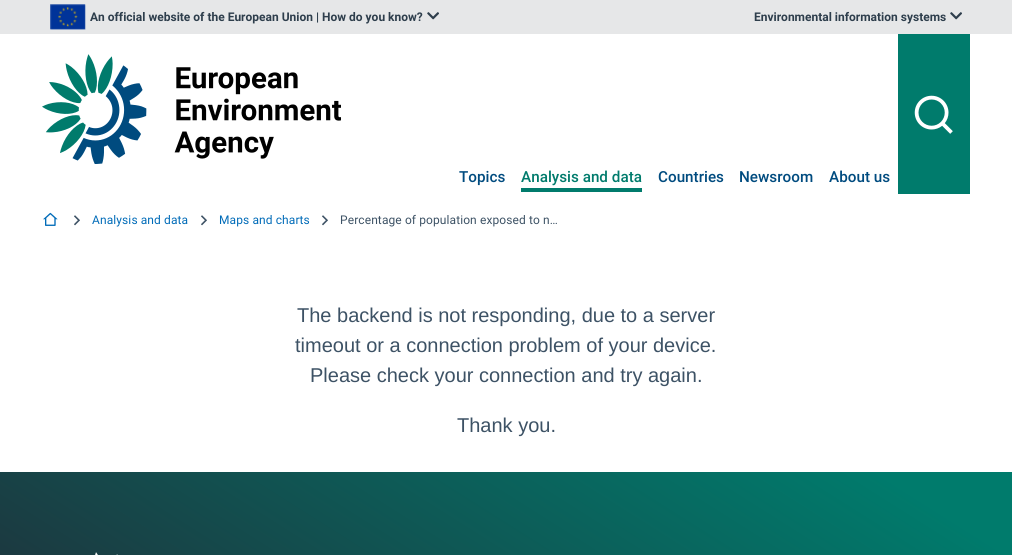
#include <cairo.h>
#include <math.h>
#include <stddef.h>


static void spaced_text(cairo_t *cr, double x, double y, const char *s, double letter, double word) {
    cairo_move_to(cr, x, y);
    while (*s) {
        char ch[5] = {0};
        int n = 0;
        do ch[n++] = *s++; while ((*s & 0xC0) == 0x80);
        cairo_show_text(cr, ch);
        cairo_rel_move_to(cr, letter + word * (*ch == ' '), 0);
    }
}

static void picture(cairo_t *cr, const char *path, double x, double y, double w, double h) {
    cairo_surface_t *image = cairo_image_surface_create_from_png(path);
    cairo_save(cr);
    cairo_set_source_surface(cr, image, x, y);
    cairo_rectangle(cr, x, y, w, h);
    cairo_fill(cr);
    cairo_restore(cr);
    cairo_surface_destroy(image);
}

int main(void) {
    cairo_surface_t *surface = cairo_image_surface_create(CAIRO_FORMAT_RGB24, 1012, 555);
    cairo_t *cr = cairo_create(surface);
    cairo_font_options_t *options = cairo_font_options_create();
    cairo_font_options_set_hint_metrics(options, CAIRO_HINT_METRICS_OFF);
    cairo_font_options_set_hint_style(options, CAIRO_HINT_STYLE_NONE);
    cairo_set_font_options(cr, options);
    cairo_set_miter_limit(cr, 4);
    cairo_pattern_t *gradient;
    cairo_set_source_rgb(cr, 1, 1, 1);
    cairo_paint(cr);
    cairo_set_source_rgb(cr, 0.902, 0.906, 0.91);
    cairo_rectangle(cr, 0, 0, 1012, 34);
    cairo_fill(cr);
    picture(cr, "img1.png", 50, 4, 36, 26);
    cairo_select_font_face(cr, "Roboto", CAIRO_FONT_SLANT_NORMAL, CAIRO_FONT_WEIGHT_BOLD);
    cairo_set_font_size(cr, 12);
    cairo_set_source_rgb(cr, 0.18, 0.243, 0.298);
    cairo_move_to(cr, 90, 21);
    cairo_show_text(cr, "An official website of the European Union | How do you know?");
    picture(cr, "img2.png", 427, 12, 12, 8);
    cairo_move_to(cr, 754, 21);
    cairo_show_text(cr, "Environmental information systems");
    picture(cr, "img2.png", 950, 12, 12, 8);
    picture(cr, "img3.png", 42, 54, 299, 110);
    cairo_select_font_face(cr, "Roboto Medium", CAIRO_FONT_SLANT_NORMAL, CAIRO_FONT_WEIGHT_NORMAL);
    cairo_set_font_size(cr, 15.25);
    cairo_set_source_rgb(cr, 0, 0.294, 0.498);
    cairo_move_to(cr, 459, 182);
    cairo_show_text(cr, "Topics");
    cairo_set_source_rgb(cr, 0, 0.482, 0.424);
    cairo_rectangle(cr, 521, 188, 121, 4);
    cairo_fill(cr);
    cairo_move_to(cr, 521, 182);
    cairo_show_text(cr, "Analysis and data");
    cairo_set_source_rgb(cr, 0, 0.294, 0.498);
    cairo_move_to(cr, 658, 182);
    cairo_show_text(cr, "Countries");
    cairo_move_to(cr, 739, 182);
    cairo_show_text(cr, "Newsroom");
    cairo_move_to(cr, 829, 182);
    cairo_show_text(cr, "About us");
    cairo_set_source_rgb(cr, 0, 0.482, 0.424);
    cairo_rectangle(cr, 898, 34, 72, 160);
    cairo_fill(cr);
    picture(cr, "img4.png", 914, 95, 39, 39);
    picture(cr, "img5.png", 43, 212, 15, 14);
    picture(cr, "img6.png", 74, 215, 6, 11);
    cairo_select_font_face(cr, "Roboto", CAIRO_FONT_SLANT_NORMAL, CAIRO_FONT_WEIGHT_NORMAL);
    cairo_set_font_size(cr, 12);
    cairo_set_source_rgb(cr, 0, 0.42, 0.722);
    spaced_text(cr, 92, 224, "Analysis and data", 0.1, 0);
    picture(cr, "img6.png", 201, 215, 6, 11);
    spaced_text(cr, 219, 224, "Maps and charts", 0.1, 0);
    picture(cr, "img6.png", 322, 215, 6, 11);
    cairo_set_source_rgb(cr, 0.239, 0.322, 0.396);
    spaced_text(cr, 340, 224, "Percentage of population exposed to n…", 0.1, 0);
    cairo_select_font_face(cr, "Liberation Sans", CAIRO_FONT_SLANT_NORMAL, CAIRO_FONT_WEIGHT_NORMAL);
    cairo_set_font_size(cr, 20);
    cairo_move_to(cr, 297, 322);
    cairo_show_text(cr, "The backend is not responding, due to a server");
    cairo_move_to(cr, 295, 352);
    cairo_show_text(cr, "timeout or a connection problem of your device.");
    cairo_move_to(cr, 310, 382);
    cairo_show_text(cr, "Please check your connection and try again.");
    cairo_move_to(cr, 457, 432);
    cairo_show_text(cr, "Thank you.");
    gradient = cairo_pattern_create_linear(778, 324, 234, 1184);
    cairo_pattern_add_color_stop_rgba(gradient, 0.07, 0, 0.482, 0.424, 1);
    cairo_pattern_add_color_stop_rgba(gradient, 0.7, 0.129, 0.176, 0.22, 1);
    cairo_pattern_add_color_stop_rgba(gradient, 0.98, 0.129, 0.176, 0.22, 1);
    cairo_set_source(cr, gradient);
    cairo_pattern_destroy(gradient);
    cairo_rectangle(cr, 0, 472, 1012, 83);
    cairo_fill(cr);
    picture(cr, "img7.png", 95, 552, 23, 3);
    cairo_surface_write_to_png(surface, "page.png");
    cairo_font_options_destroy(options);
    cairo_destroy(cr);
    cairo_surface_destroy(surface);
    return 0;
}
